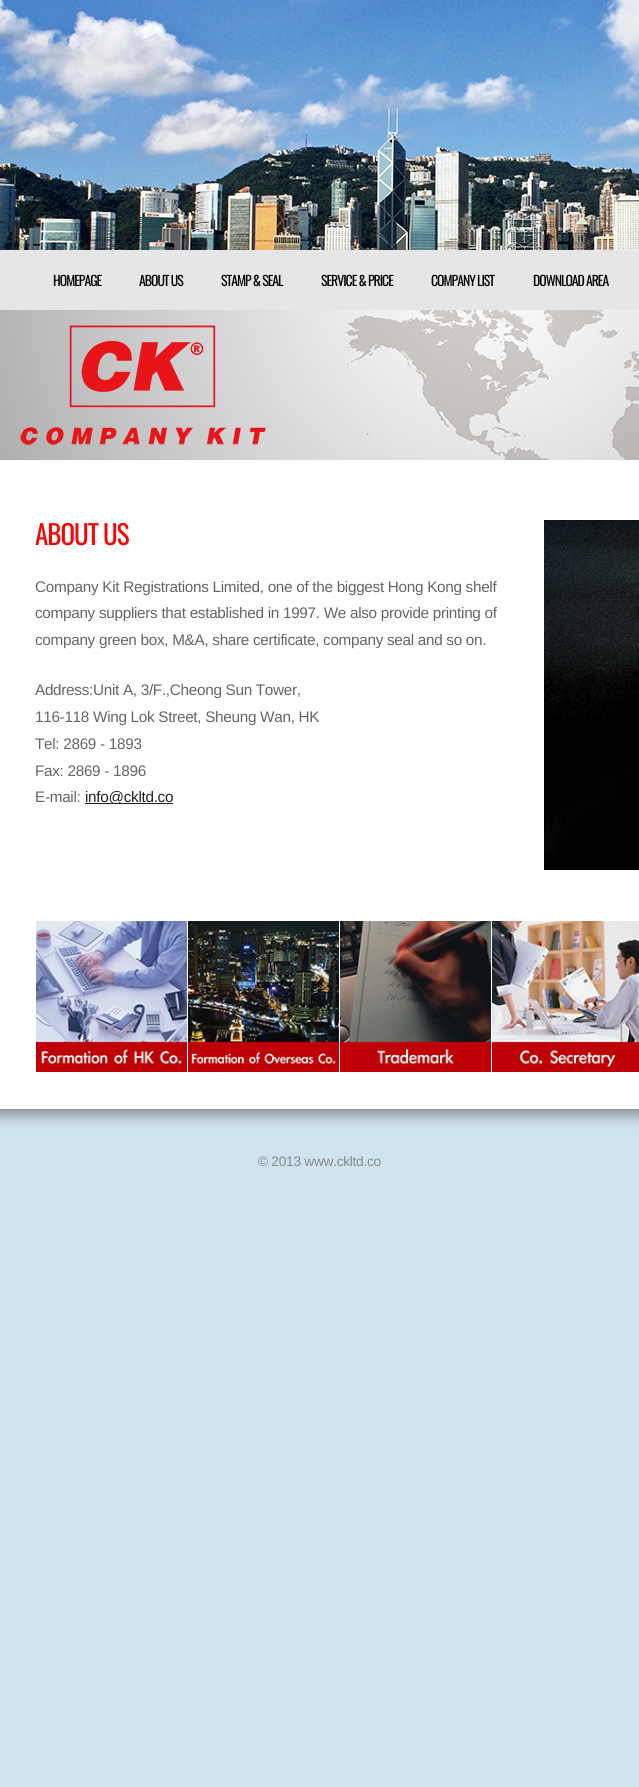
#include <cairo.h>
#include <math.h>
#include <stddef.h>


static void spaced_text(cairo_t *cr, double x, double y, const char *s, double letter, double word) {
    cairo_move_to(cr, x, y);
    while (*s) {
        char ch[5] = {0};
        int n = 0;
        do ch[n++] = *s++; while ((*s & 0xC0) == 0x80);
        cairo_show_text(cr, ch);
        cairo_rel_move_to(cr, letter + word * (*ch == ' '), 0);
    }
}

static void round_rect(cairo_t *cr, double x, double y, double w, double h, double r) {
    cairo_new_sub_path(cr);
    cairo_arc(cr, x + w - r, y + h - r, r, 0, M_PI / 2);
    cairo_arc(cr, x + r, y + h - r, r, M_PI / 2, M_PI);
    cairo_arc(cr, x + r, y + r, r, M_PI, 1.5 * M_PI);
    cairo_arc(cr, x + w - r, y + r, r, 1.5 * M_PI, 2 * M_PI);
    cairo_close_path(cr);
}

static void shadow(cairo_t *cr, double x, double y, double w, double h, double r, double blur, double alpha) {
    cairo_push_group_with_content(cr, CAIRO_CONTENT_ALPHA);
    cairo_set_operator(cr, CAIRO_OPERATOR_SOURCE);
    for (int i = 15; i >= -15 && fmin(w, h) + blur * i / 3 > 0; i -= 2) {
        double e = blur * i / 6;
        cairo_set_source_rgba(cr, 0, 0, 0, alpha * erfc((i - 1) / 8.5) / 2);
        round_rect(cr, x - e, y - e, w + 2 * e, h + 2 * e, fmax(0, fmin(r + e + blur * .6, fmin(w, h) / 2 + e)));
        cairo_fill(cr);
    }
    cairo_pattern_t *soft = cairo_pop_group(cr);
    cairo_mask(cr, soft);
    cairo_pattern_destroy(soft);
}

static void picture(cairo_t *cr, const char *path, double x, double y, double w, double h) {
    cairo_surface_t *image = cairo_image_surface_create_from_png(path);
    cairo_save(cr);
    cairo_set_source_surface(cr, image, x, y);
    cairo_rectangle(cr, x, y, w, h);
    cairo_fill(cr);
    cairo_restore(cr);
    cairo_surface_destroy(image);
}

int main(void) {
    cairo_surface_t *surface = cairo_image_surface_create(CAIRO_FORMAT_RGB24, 639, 1787);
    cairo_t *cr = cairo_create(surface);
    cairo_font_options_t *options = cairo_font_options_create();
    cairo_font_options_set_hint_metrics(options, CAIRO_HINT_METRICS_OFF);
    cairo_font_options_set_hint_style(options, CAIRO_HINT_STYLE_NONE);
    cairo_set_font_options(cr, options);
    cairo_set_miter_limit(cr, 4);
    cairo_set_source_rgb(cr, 0.816, 0.89, 0.945);
    cairo_paint(cr);
    cairo_set_source_rgb(cr, 0.467, 0.467, 0.467);
    shadow(cr, -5, -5, 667, 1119, 0, 7.5, 0.9);
    cairo_set_source_rgb(cr, 1, 1, 1);
    cairo_rectangle(cr, 0, 460, 639, 649);
    cairo_fill(cr);
    picture(cr, "img1.png", 0, 0, 639, 250);
    cairo_set_source_rgb(cr, 0.902, 0.902, 0.902);
    cairo_rectangle(cr, 0, 250, 639, 60);
    cairo_fill(cr);
    cairo_select_font_face(cr, "Oswald", CAIRO_FONT_SLANT_NORMAL, CAIRO_FONT_WEIGHT_NORMAL);
    cairo_set_font_size(cr, 13.75);
    cairo_set_source_rgb(cr, 0, 0, 0);
    spaced_text(cr, 53, 286, "HOMEPAGE", -1, 0);
    spaced_text(cr, 139, 286, "ABOUT US", -1, 0);
    spaced_text(cr, 221, 286, "STAMP & SEAL", -1, 0);
    spaced_text(cr, 321, 286, "SERVICE & PRICE", -1, 0);
    spaced_text(cr, 431, 286, "COMPANY LIST", -1, 0);
    spaced_text(cr, 533, 286, "DOWNLOAD AREA", -1, 0);
    picture(cr, "img2.png", 0, 310, 639, 150);
    picture(cr, "img3.png", 20, 325, 246, 120);
    cairo_set_font_size(cr, 27);
    cairo_set_source_rgb(cr, 1, 0, 0);
    spaced_text(cr, 35, 545, "ABOUT US", -1, 0);
    cairo_select_font_face(cr, "Liberation Sans", CAIRO_FONT_SLANT_NORMAL, CAIRO_FONT_WEIGHT_NORMAL);
    cairo_set_font_size(cr, 15.3);
    cairo_set_source_rgb(cr, 0.396, 0.396, 0.396);
    spaced_text(cr, 35, 592, "Company Kit Registrations Limited, one of the biggest Hong Kong shelf", -0.3, 0);
    spaced_text(cr, 35, 618, "company suppliers that established in 1997. We also provide printing of", -0.3, 0);
    spaced_text(cr, 35, 645, "company green box, M&A, share certificate, company seal and so on.", -0.3, 0);
    spaced_text(cr, 35, 695, "Address:Unit A, 3/F.,Cheong Sun Tower,", -0.3, 0);
    spaced_text(cr, 35, 722, "116-118 Wing Lok Street, Sheung Wan, HK", -0.3, 0);
    spaced_text(cr, 35, 749, "Tel: 2869 - 1893", -0.3, 0);
    spaced_text(cr, 35, 776, "Fax: 2869 - 1896", -0.3, 0);
    spaced_text(cr, 35, 802, "E-mail:", -0.3, 0);
    cairo_set_source_rgb(cr, 0.133, 0.133, 0.133);
    cairo_rectangle(cr, 85, 803, 88, 1);
    cairo_fill(cr);
    spaced_text(cr, 85, 802, "info@ckltd.co", -0.3, 0);
    picture(cr, "img4.png", 544, 520, 95, 350);
    picture(cr, "img5.png", 36, 921, 151, 151);
    picture(cr, "img6.png", 188, 921, 151, 151);
    picture(cr, "img7.png", 340, 921, 151, 151);
    picture(cr, "img8.png", 492, 921, 147, 151);
    cairo_set_font_size(cr, 13.75);
    cairo_set_source_rgb(cr, 0.533, 0.533, 0.533);
    spaced_text(cr, 258, 1166, "© 2013 www.ckltd.co", -0.3, 0);
    cairo_surface_write_to_png(surface, "page.png");
    cairo_font_options_destroy(options);
    cairo_destroy(cr);
    cairo_surface_destroy(surface);
    return 0;
}
